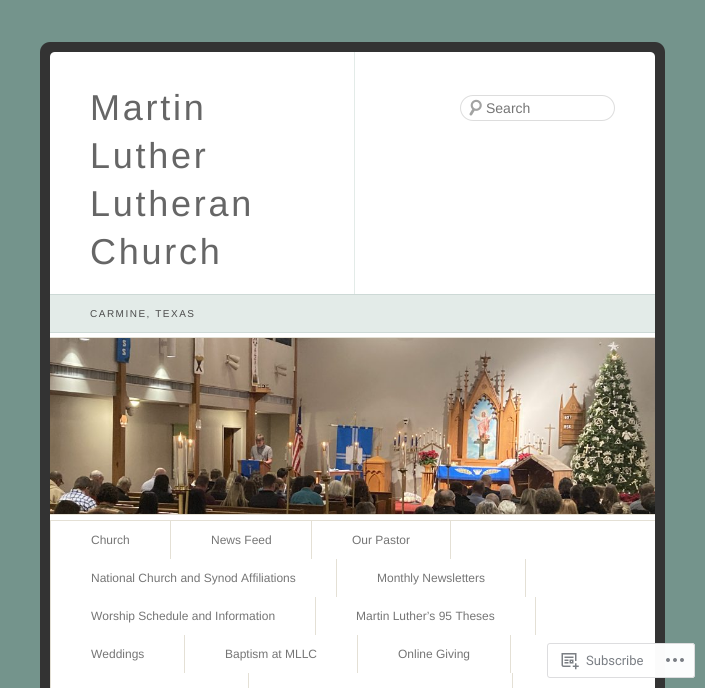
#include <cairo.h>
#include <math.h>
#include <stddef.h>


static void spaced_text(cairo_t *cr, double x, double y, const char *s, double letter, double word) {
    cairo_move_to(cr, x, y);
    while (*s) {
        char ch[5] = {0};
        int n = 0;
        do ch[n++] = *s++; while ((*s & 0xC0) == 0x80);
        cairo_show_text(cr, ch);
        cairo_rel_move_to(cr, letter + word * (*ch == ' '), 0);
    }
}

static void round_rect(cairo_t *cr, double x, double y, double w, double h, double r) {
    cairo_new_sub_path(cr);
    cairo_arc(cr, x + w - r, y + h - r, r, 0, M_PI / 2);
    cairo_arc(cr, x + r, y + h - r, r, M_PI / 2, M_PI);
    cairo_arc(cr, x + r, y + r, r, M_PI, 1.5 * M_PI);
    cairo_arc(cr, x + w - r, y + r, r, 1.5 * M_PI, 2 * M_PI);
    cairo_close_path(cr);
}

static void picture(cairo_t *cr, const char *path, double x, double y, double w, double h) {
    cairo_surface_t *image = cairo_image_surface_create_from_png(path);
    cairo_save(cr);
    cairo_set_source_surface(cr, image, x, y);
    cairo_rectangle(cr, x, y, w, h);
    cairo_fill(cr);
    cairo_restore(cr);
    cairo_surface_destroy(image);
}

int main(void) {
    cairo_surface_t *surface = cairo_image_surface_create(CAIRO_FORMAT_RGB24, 705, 688);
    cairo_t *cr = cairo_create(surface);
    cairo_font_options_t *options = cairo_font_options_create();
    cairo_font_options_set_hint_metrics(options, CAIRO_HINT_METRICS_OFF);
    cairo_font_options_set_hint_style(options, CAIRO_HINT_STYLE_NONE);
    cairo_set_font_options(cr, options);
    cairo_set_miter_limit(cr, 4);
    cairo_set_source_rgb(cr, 0.455, 0.58, 0.549);
    cairo_paint(cr);
    cairo_set_source_rgb(cr, 0.2, 0.2, 0.2);
    round_rect(cr, 40, 42, 625, 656, 10);
    cairo_fill(cr);
    cairo_set_source_rgb(cr, 1, 1, 1);
    cairo_new_path(cr);
    cairo_move_to(cr, 55, 52);
    cairo_line_to(cr, 650, 52);
    cairo_curve_to(cr, 653, 52, 655, 54, 655, 57);
    cairo_line_to(cr, 655, 521);
    cairo_line_to(cr, 50, 521);
    cairo_line_to(cr, 50, 57);
    cairo_curve_to(cr, 50, 54, 52, 52, 55, 52);
    cairo_close_path(cr);
    cairo_fill(cr);
    cairo_set_source_rgb(cr, 0.89, 0.918, 0.91);
    cairo_rectangle(cr, 354, 52, 1, 242);
    cairo_fill(cr);
    cairo_select_font_face(cr, "Liberation Sans", CAIRO_FONT_SLANT_NORMAL, CAIRO_FONT_WEIGHT_NORMAL);
    cairo_set_font_size(cr, 36);
    cairo_set_source_rgb(cr, 0.4, 0.4, 0.4);
    spaced_text(cr, 90, 120, "Martin", 2.75, 0);
    spaced_text(cr, 90, 168, "Luther", 2.75, 0);
    spaced_text(cr, 90, 216, "Lutheran", 2.75, 0);
    spaced_text(cr, 90, 264, "Church", 2.75, 0);
    cairo_set_source_rgb(cr, 0.89, 0.918, 0.91);
    cairo_rectangle(cr, 50, 295, 605, 37);
    cairo_fill(cr);
    cairo_set_source_rgb(cr, 0.804, 0.851, 0.839);
    cairo_rectangle(cr, 50, 294, 605, 1);
    cairo_fill(cr);
    cairo_rectangle(cr, 50, 332, 605, 1);
    cairo_fill(cr);
    cairo_set_font_size(cr, 10);
    cairo_set_source_rgb(cr, 0.298, 0.298, 0.298);
    spaced_text(cr, 90, 317, "CARMINE, TEXAS", 1.5, 0);
    picture(cr, "img1.png", 469, 99, 13, 17);
    round_rect(cr, 460.5, 95.5, 154, 25, 12.5);
    cairo_set_source_rgb(cr, 0.867, 0.867, 0.867);
    cairo_set_line_width(cr, 1);
    cairo_stroke(cr);
    cairo_set_font_size(cr, 14);
    cairo_set_source_rgb(cr, 0.459, 0.459, 0.459);
    cairo_move_to(cr, 486, 113);
    cairo_show_text(cr, "Search");
    cairo_set_source_rgb(cr, 0.894, 0.878, 0.835);
    cairo_rectangle(cr, 50, 337, 605, 1);
    cairo_fill(cr);
    picture(cr, "img2.png", 50, 338, 605, 176);
    cairo_rectangle(cr, 50, 514, 605, 1);
    cairo_fill(cr);
    cairo_set_source_rgb(cr, 1, 1, 1);
    cairo_rectangle(cr, 50, 521, 605, 167);
    cairo_fill(cr);
    cairo_set_source_rgb(cr, 0.894, 0.878, 0.835);
    cairo_rectangle(cr, 50, 520, 605, 1);
    cairo_fill(cr);
    cairo_rectangle(cr, 50, 521, 1, 167);
    cairo_fill(cr);
    cairo_rectangle(cr, 170, 521, 1, 38);
    cairo_fill(cr);
    cairo_set_font_size(cr, 12);
    cairo_set_source_rgb(cr, 0.459, 0.459, 0.459);
    cairo_move_to(cr, 91, 544);
    cairo_show_text(cr, "Church");
    cairo_set_source_rgb(cr, 0.894, 0.878, 0.835);
    cairo_rectangle(cr, 311, 521, 1, 38);
    cairo_fill(cr);
    cairo_set_source_rgb(cr, 0.459, 0.459, 0.459);
    cairo_move_to(cr, 211, 544);
    cairo_show_text(cr, "News Feed");
    cairo_set_source_rgb(cr, 0.894, 0.878, 0.835);
    cairo_rectangle(cr, 450, 521, 1, 38);
    cairo_fill(cr);
    cairo_set_source_rgb(cr, 0.459, 0.459, 0.459);
    cairo_move_to(cr, 352, 544);
    cairo_show_text(cr, "Our Pastor");
    cairo_set_source_rgb(cr, 0.894, 0.878, 0.835);
    cairo_rectangle(cr, 336, 559, 1, 38);
    cairo_fill(cr);
    cairo_set_source_rgb(cr, 0.459, 0.459, 0.459);
    cairo_move_to(cr, 91, 582);
    cairo_show_text(cr, "National Church and Synod Affiliations");
    cairo_set_source_rgb(cr, 0.894, 0.878, 0.835);
    cairo_rectangle(cr, 525, 559, 1, 38);
    cairo_fill(cr);
    cairo_set_source_rgb(cr, 0.459, 0.459, 0.459);
    cairo_move_to(cr, 377, 582);
    cairo_show_text(cr, "Monthly Newsletters");
    cairo_set_source_rgb(cr, 0.894, 0.878, 0.835);
    cairo_rectangle(cr, 315, 597, 1, 38);
    cairo_fill(cr);
    cairo_set_source_rgb(cr, 0.459, 0.459, 0.459);
    cairo_move_to(cr, 91, 620);
    cairo_show_text(cr, "Worship Schedule and Information");
    cairo_set_source_rgb(cr, 0.894, 0.878, 0.835);
    cairo_rectangle(cr, 535, 597, 1, 38);
    cairo_fill(cr);
    cairo_set_source_rgb(cr, 0.459, 0.459, 0.459);
    cairo_move_to(cr, 356, 620);
    cairo_show_text(cr, "Martin Luther’s 95 Theses");
    cairo_set_source_rgb(cr, 0.894, 0.878, 0.835);
    cairo_rectangle(cr, 184, 635, 1, 38);
    cairo_fill(cr);
    cairo_set_source_rgb(cr, 0.459, 0.459, 0.459);
    cairo_move_to(cr, 91, 658);
    cairo_show_text(cr, "Weddings");
    cairo_set_source_rgb(cr, 0.894, 0.878, 0.835);
    cairo_rectangle(cr, 357, 635, 1, 38);
    cairo_fill(cr);
    cairo_set_source_rgb(cr, 0.459, 0.459, 0.459);
    cairo_move_to(cr, 225, 658);
    cairo_show_text(cr, "Baptism at MLLC");
    cairo_set_source_rgb(cr, 0.894, 0.878, 0.835);
    cairo_rectangle(cr, 510, 635, 1, 38);
    cairo_fill(cr);
    cairo_set_source_rgb(cr, 0.459, 0.459, 0.459);
    cairo_move_to(cr, 398, 658);
    cairo_show_text(cr, "Online Giving");
    cairo_set_source_rgb(cr, 0.894, 0.878, 0.835);
    cairo_rectangle(cr, 248, 673, 1, 15);
    cairo_fill(cr);
    cairo_rectangle(cr, 512, 673, 1, 15);
    cairo_fill(cr);
    cairo_set_source_rgba(cr, 1, 1, 1, 0.98);
    round_rect(cr, 547, 643, 148, 35, 3);
    cairo_fill(cr);
    round_rect(cr, 547.5, 643.5, 147, 34, 2.5);
    cairo_set_source_rgba(cr, 0.863, 0.863, 0.871, 0.98);
    cairo_stroke(cr);
    picture(cr, "img3.png", 561, 653, 18, 17);
    cairo_select_font_face(cr, "Roboto", CAIRO_FONT_SLANT_NORMAL, CAIRO_FONT_WEIGHT_NORMAL);
    cairo_set_font_size(cr, 13);
    cairo_set_source_rgb(cr, 0.482, 0.498, 0.522);
    cairo_move_to(cr, 586, 665);
    cairo_show_text(cr, "Subscribe");
    picture(cr, "img4.png", 666, 658, 18, 4);
    cairo_surface_write_to_png(surface, "page.png");
    cairo_font_options_destroy(options);
    cairo_destroy(cr);
    cairo_surface_destroy(surface);
    return 0;
}
